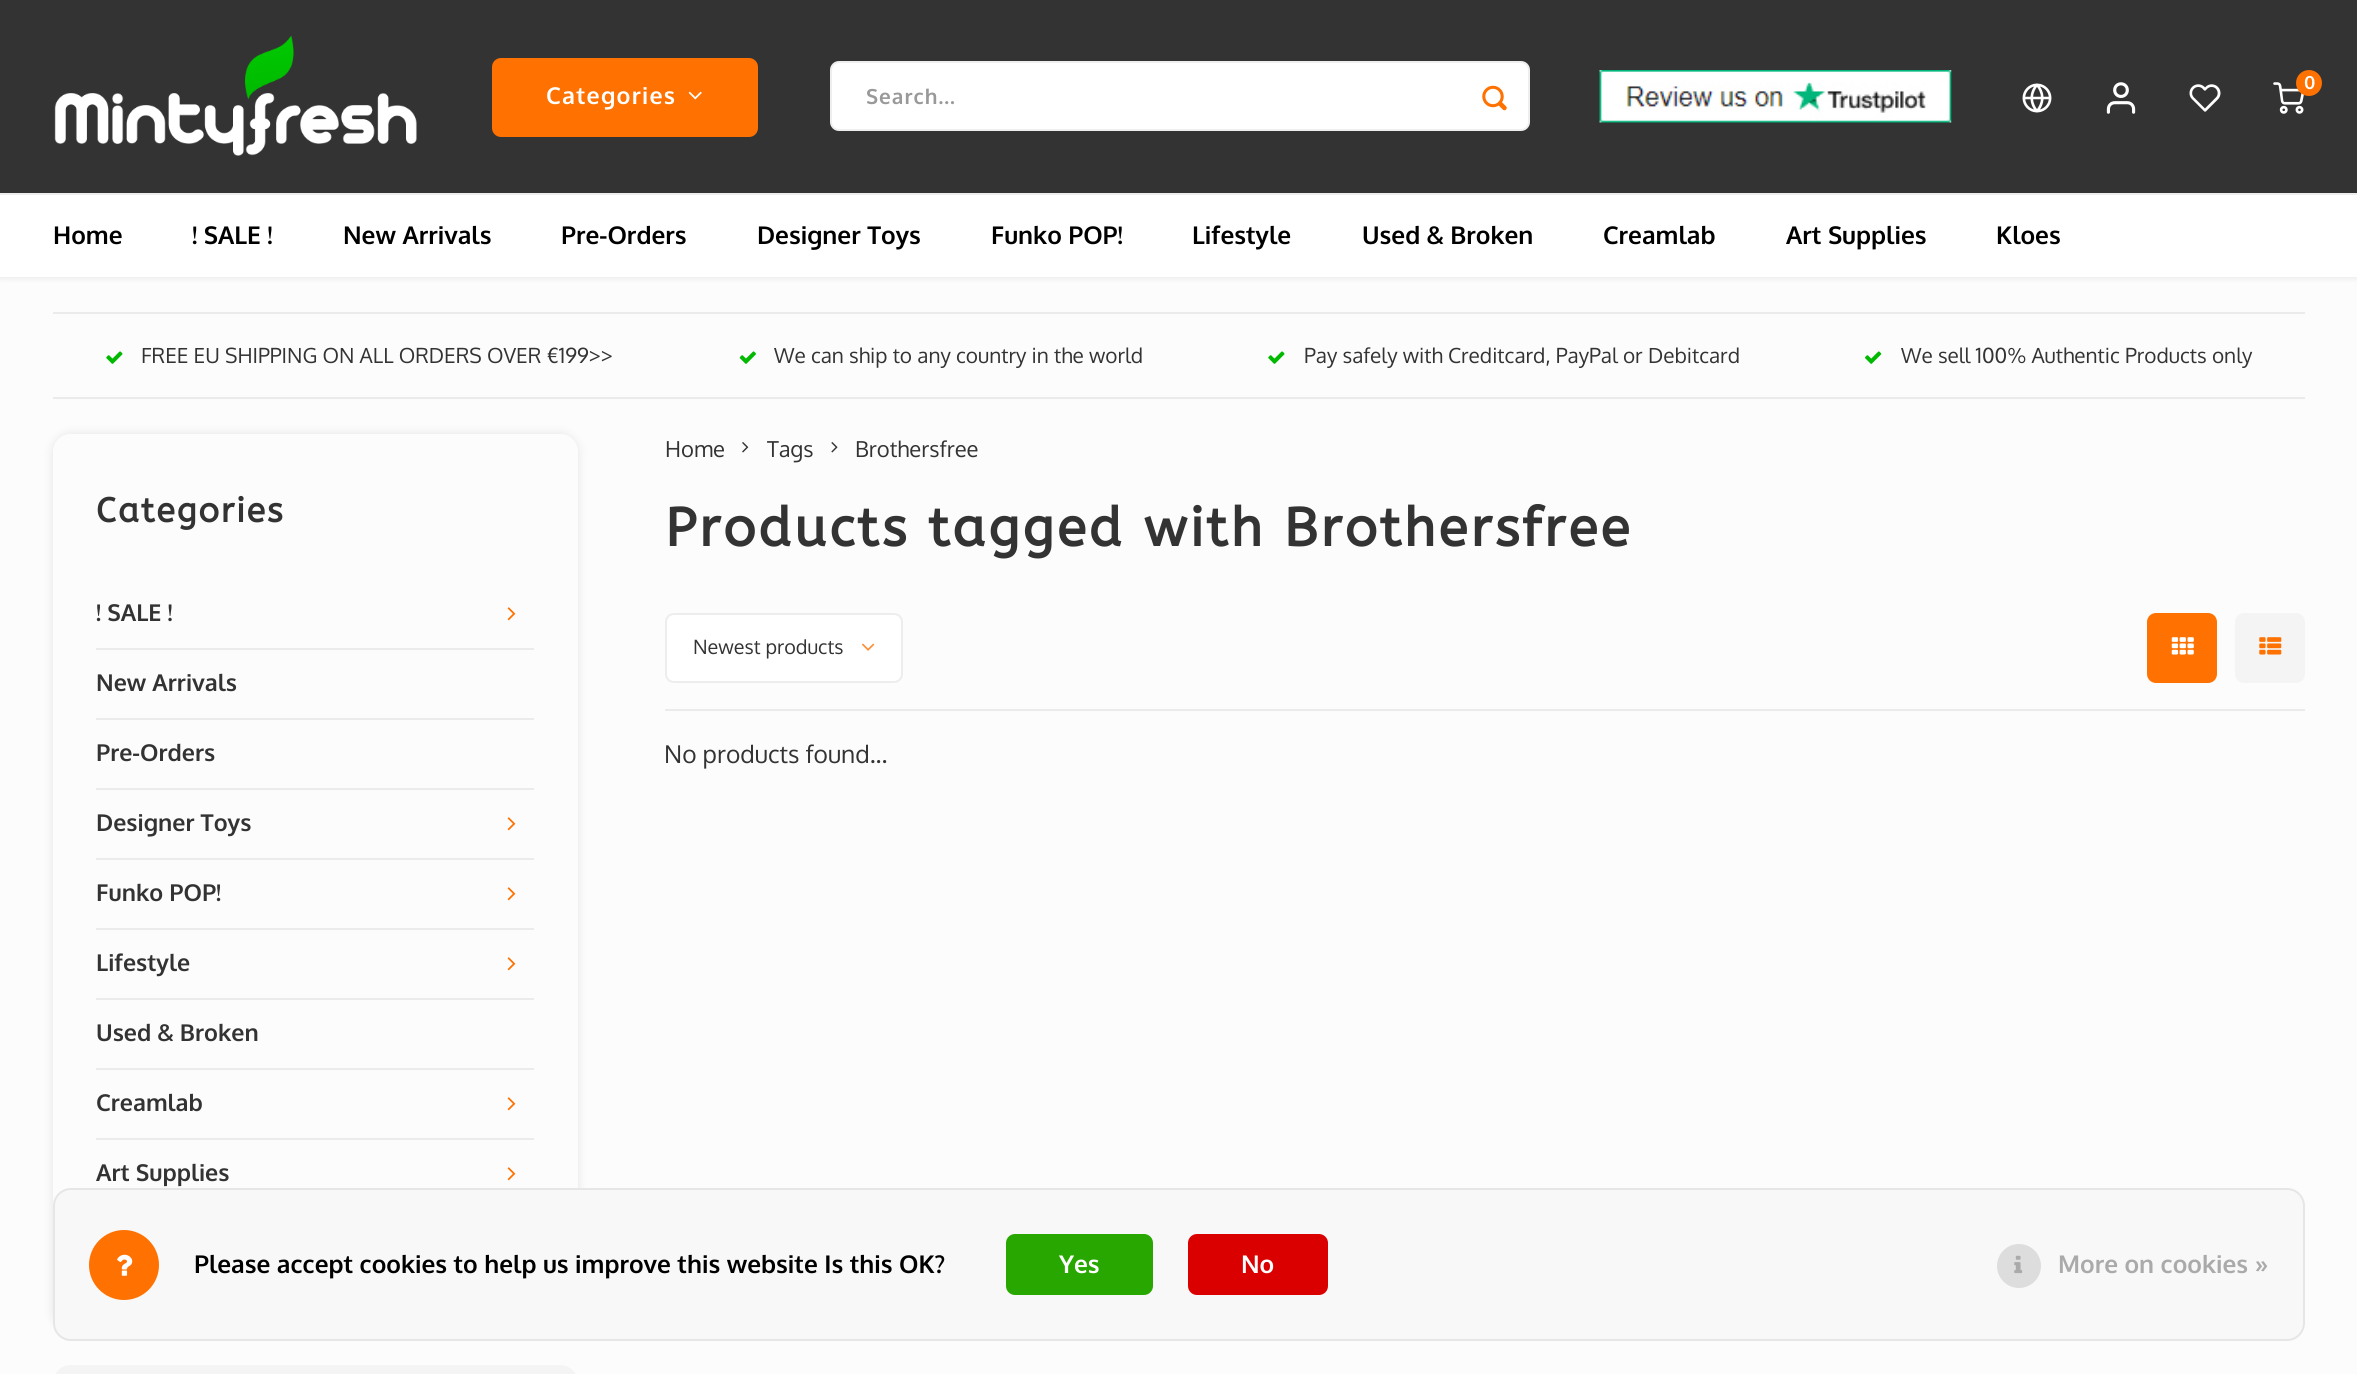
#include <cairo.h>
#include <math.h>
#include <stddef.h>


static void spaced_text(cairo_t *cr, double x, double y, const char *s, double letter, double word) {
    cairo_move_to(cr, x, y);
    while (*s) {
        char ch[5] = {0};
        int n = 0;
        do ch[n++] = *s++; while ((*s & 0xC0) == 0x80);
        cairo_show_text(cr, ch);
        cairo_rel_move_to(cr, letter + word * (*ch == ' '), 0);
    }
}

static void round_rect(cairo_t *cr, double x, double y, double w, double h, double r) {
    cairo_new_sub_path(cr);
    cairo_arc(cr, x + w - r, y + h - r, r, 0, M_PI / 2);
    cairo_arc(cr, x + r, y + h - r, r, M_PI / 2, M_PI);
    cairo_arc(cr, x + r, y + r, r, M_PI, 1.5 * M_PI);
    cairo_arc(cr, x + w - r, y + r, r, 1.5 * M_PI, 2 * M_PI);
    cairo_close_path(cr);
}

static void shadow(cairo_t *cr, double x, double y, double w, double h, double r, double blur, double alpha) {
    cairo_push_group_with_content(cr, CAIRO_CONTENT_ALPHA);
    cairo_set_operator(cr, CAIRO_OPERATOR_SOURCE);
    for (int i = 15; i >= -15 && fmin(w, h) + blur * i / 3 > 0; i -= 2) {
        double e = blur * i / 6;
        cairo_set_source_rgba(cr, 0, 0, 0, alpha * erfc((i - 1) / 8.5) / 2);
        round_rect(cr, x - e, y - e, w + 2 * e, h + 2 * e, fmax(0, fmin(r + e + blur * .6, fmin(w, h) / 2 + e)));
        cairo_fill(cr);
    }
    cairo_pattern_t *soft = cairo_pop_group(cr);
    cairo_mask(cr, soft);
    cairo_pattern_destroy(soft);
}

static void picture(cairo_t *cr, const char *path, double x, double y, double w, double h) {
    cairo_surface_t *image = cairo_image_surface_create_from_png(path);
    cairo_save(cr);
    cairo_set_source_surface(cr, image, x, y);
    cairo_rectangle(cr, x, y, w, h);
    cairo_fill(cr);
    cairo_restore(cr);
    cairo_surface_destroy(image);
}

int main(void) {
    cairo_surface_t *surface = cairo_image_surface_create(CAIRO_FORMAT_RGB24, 2357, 1374);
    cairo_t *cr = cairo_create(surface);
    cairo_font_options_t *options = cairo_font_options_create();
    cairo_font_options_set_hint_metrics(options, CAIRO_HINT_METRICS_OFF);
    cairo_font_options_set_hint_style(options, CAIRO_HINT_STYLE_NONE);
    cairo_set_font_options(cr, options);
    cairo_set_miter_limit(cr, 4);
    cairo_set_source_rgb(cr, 0.988, 0.988, 0.988);
    cairo_paint(cr);
    cairo_set_source_rgb(cr, 0, 0, 0);
    shadow(cr, 0, 2, 2357, 276, 0, 3.5, 0.08);
    cairo_set_source_rgb(cr, 0.2, 0.2, 0.2);
    cairo_rectangle(cr, 0, 0, 2357, 193);
    cairo_fill(cr);
    picture(cr, "img1.png", 54, 35, 363, 121);
    picture(cr, "img2.png", 1599, 70, 353, 53);
    picture(cr, "img3.png", 2022, 83, 30, 30);
    picture(cr, "img4.png", 2106, 82, 30, 32);
    picture(cr, "img5.png", 2189, 84, 32, 28);
    picture(cr, "img6.png", 2273, 82, 31, 32);
    cairo_set_source_rgb(cr, 1, 0.443, 0);
    cairo_arc(cr, 2309, 83, 13, 0, 2 * M_PI);
    cairo_fill(cr);
    cairo_select_font_face(cr, "Oxygen", CAIRO_FONT_SLANT_NORMAL, CAIRO_FONT_WEIGHT_BOLD);
    cairo_set_font_size(cr, 18);
    cairo_set_source_rgb(cr, 1, 1, 1);
    cairo_move_to(cr, 2304, 89);
    cairo_show_text(cr, "0");
    cairo_set_source_rgb(cr, 1, 0.443, 0);
    round_rect(cr, 492, 58, 266, 79, 9);
    cairo_fill(cr);
    cairo_set_font_size(cr, 23.25);
    cairo_set_source_rgb(cr, 1, 1, 1);
    spaced_text(cr, 546, 104, "Categories", 1.25, 0);
    picture(cr, "img7.png", 688, 91, 14, 9);
    round_rect(cr, 830, 61, 700, 70, 9);
    cairo_fill(cr);
    round_rect(cr, 831, 62, 698, 68, 8);
    cairo_set_source_rgba(cr, 0, 0, 0, 0.07);
    cairo_stroke(cr);
    cairo_set_font_size(cr, 20.8);
    cairo_set_source_rgb(cr, 0.6, 0.6, 0.6);
    spaced_text(cr, 866, 104, "Search...", 1, 0);
    picture(cr, "img8.png", 1482, 85, 25, 26);
    cairo_set_source_rgb(cr, 1, 1, 1);
    cairo_rectangle(cr, 0, 195, 2357, 82);
    cairo_fill(cr);
    cairo_set_source_rgb(cr, 0.929, 0.929, 0.929);
    cairo_rectangle(cr, 0, 193, 2357, 2);
    cairo_fill(cr);
    cairo_set_font_size(cr, 24.5);
    cairo_set_source_rgb(cr, 0, 0, 0);
    cairo_move_to(cr, 53, 244);
    cairo_show_text(cr, "Home");
    cairo_move_to(cr, 192, 244);
    cairo_show_text(cr, "! SALE !");
    cairo_move_to(cr, 343, 244);
    cairo_show_text(cr, "New Arrivals");
    cairo_move_to(cr, 561, 244);
    cairo_show_text(cr, "Pre-Orders");
    cairo_move_to(cr, 757, 244);
    cairo_show_text(cr, "Designer Toys");
    cairo_move_to(cr, 991, 244);
    cairo_show_text(cr, "Funko POP!");
    cairo_move_to(cr, 1192, 244);
    cairo_show_text(cr, "Lifestyle");
    cairo_move_to(cr, 1362, 244);
    cairo_show_text(cr, "Used & Broken");
    cairo_move_to(cr, 1603, 244);
    cairo_show_text(cr, "Creamlab");
    cairo_move_to(cr, 1786, 244);
    cairo_show_text(cr, "Art Supplies");
    cairo_move_to(cr, 1996, 244);
    cairo_show_text(cr, "Kloes");
    cairo_set_source_rgb(cr, 0.918, 0.918, 0.918);
    cairo_rectangle(cr, 53, 312, 2252, 2);
    cairo_fill(cr);
    cairo_rectangle(cr, 53, 397, 2252, 2);
    cairo_fill(cr);
    picture(cr, "img9.png", 106, 351, 17, 13);
    cairo_select_font_face(cr, "Oxygen", CAIRO_FONT_SLANT_NORMAL, CAIRO_FONT_WEIGHT_NORMAL);
    cairo_set_font_size(cr, 20.8);
    cairo_set_source_rgb(cr, 0.2, 0.2, 0.2);
    cairo_move_to(cr, 141, 363);
    cairo_show_text(cr, "FREE EU SHIPPING ON ALL ORDERS OVER €199>>");
    picture(cr, "img10.png", 739, 351, 17, 13);
    cairo_move_to(cr, 774, 363);
    cairo_show_text(cr, "We can ship to any country in the world");
    picture(cr, "img9.png", 1268, 351, 17, 13);
    cairo_move_to(cr, 1304, 363);
    cairo_show_text(cr, "Pay safely with Creditcard, PayPal or Debitcard");
    picture(cr, "img11.png", 1865, 351, 17, 13);
    cairo_move_to(cr, 1901, 363);
    cairo_show_text(cr, "We sell 100% Authentic Products only");
    cairo_save(cr);
    cairo_set_fill_rule(cr, CAIRO_FILL_RULE_EVEN_ODD);
    cairo_new_path(cr);
    cairo_move_to(cr, 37, 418);
    cairo_line_to(cr, 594, 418);
    cairo_line_to(cr, 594, 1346);
    cairo_line_to(cr, 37, 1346);
    cairo_close_path(cr);
    cairo_move_to(cr, 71, 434);
    cairo_line_to(cr, 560, 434);
    cairo_curve_to(cr, 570, 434, 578, 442, 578, 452);
    cairo_line_to(cr, 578, 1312);
    cairo_curve_to(cr, 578, 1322, 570, 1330, 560, 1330);
    cairo_line_to(cr, 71, 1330);
    cairo_curve_to(cr, 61, 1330, 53, 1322, 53, 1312);
    cairo_line_to(cr, 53, 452);
    cairo_curve_to(cr, 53, 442, 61, 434, 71, 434);
    cairo_close_path(cr);
    cairo_clip(cr);
    cairo_set_source_rgb(cr, 0, 0, 0);
    shadow(cr, 53, 434, 525, 896, 18, 5, 0.1);
    cairo_restore(cr);
    cairo_select_font_face(cr, "ABeeZee", CAIRO_FONT_SLANT_NORMAL, CAIRO_FONT_WEIGHT_BOLD);
    cairo_set_font_size(cr, 34.25);
    spaced_text(cr, 96, 522, "Categories", 1.75, 0);
    cairo_select_font_face(cr, "Oxygen", CAIRO_FONT_SLANT_NORMAL, CAIRO_FONT_WEIGHT_BOLD);
    cairo_set_font_size(cr, 23.25);
    cairo_move_to(cr, 96, 621);
    cairo_show_text(cr, "! SALE !");
    picture(cr, "img12.png", 507, 607, 9, 14);
    cairo_set_source_rgb(cr, 0.918, 0.918, 0.918);
    cairo_rectangle(cr, 96, 648, 438, 2);
    cairo_fill(cr);
    cairo_set_source_rgb(cr, 0.2, 0.2, 0.2);
    cairo_move_to(cr, 96, 691);
    cairo_show_text(cr, "New Arrivals");
    cairo_set_source_rgb(cr, 0.918, 0.918, 0.918);
    cairo_rectangle(cr, 96, 718, 438, 2);
    cairo_fill(cr);
    cairo_set_source_rgb(cr, 0.2, 0.2, 0.2);
    cairo_move_to(cr, 96, 761);
    cairo_show_text(cr, "Pre-Orders");
    cairo_set_source_rgb(cr, 0.918, 0.918, 0.918);
    cairo_rectangle(cr, 96, 788, 438, 2);
    cairo_fill(cr);
    cairo_set_source_rgb(cr, 0.2, 0.2, 0.2);
    cairo_move_to(cr, 96, 831);
    cairo_show_text(cr, "Designer Toys");
    picture(cr, "img12.png", 507, 817, 9, 14);
    cairo_set_source_rgb(cr, 0.918, 0.918, 0.918);
    cairo_rectangle(cr, 96, 858, 438, 2);
    cairo_fill(cr);
    cairo_set_source_rgb(cr, 0.2, 0.2, 0.2);
    cairo_move_to(cr, 96, 901);
    cairo_show_text(cr, "Funko POP!");
    picture(cr, "img12.png", 507, 887, 9, 14);
    cairo_set_source_rgb(cr, 0.918, 0.918, 0.918);
    cairo_rectangle(cr, 96, 928, 438, 2);
    cairo_fill(cr);
    cairo_set_source_rgb(cr, 0.2, 0.2, 0.2);
    cairo_move_to(cr, 96, 971);
    cairo_show_text(cr, "Lifestyle");
    picture(cr, "img12.png", 507, 957, 9, 14);
    cairo_set_source_rgb(cr, 0.918, 0.918, 0.918);
    cairo_rectangle(cr, 96, 998, 438, 2);
    cairo_fill(cr);
    cairo_set_source_rgb(cr, 0.2, 0.2, 0.2);
    cairo_move_to(cr, 96, 1041);
    cairo_show_text(cr, "Used & Broken");
    cairo_set_source_rgb(cr, 0.918, 0.918, 0.918);
    cairo_rectangle(cr, 96, 1068, 438, 2);
    cairo_fill(cr);
    cairo_set_source_rgb(cr, 0.2, 0.2, 0.2);
    cairo_move_to(cr, 96, 1111);
    cairo_show_text(cr, "Creamlab");
    picture(cr, "img12.png", 507, 1097, 9, 14);
    cairo_set_source_rgb(cr, 0.918, 0.918, 0.918);
    cairo_rectangle(cr, 96, 1138, 438, 2);
    cairo_fill(cr);
    cairo_set_source_rgb(cr, 0.2, 0.2, 0.2);
    cairo_move_to(cr, 96, 1181);
    cairo_show_text(cr, "Art Supplies");
    picture(cr, "img12.png", 507, 1167, 9, 14);
    cairo_set_source_rgb(cr, 0.957, 0.957, 0.957);
    round_rect(cr, 53, 1365, 525, 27, 18);
    cairo_fill(cr);
    cairo_select_font_face(cr, "Oxygen", CAIRO_FONT_SLANT_NORMAL, CAIRO_FONT_WEIGHT_NORMAL);
    cairo_set_font_size(cr, 22);
    cairo_set_source_rgb(cr, 0.2, 0.2, 0.2);
    cairo_move_to(cr, 665, 457);
    cairo_show_text(cr, "Home");
    picture(cr, "img13.png", 742, 442, 7, 11);
    cairo_move_to(cr, 767, 457);
    cairo_show_text(cr, "Tags");
    picture(cr, "img14.png", 831, 442, 7, 11);
    cairo_move_to(cr, 855, 457);
    cairo_show_text(cr, "Brothersfree");
    cairo_select_font_face(cr, "ABeeZee", CAIRO_FONT_SLANT_NORMAL, CAIRO_FONT_WEIGHT_BOLD);
    cairo_set_font_size(cr, 53.9);
    spaced_text(cr, 665, 546, "Products tagged with Brothersfree", 2.7, 0);
    cairo_set_source_rgb(cr, 0.918, 0.918, 0.918);
    cairo_rectangle(cr, 665, 709, 1640, 2);
    cairo_fill(cr);
    cairo_set_source_rgb(cr, 1, 1, 1);
    round_rect(cr, 666, 614, 236, 68, 8);
    cairo_fill_preserve(cr);
    cairo_set_source_rgb(cr, 0.929, 0.929, 0.929);
    cairo_stroke(cr);
    cairo_select_font_face(cr, "Oxygen", CAIRO_FONT_SLANT_NORMAL, CAIRO_FONT_WEIGHT_NORMAL);
    cairo_set_font_size(cr, 19.75);
    cairo_set_source_rgb(cr, 0.2, 0.2, 0.2);
    cairo_move_to(cr, 693, 654);
    cairo_show_text(cr, "Newest products");
    picture(cr, "img15.png", 862, 643, 13, 8);
    cairo_set_source_rgb(cr, 1, 0.443, 0);
    round_rect(cr, 2147, 613, 70, 70, 9);
    cairo_fill(cr);
    picture(cr, "img16.png", 2171, 637, 23, 18);
    cairo_set_source_rgb(cr, 0.957, 0.957, 0.957);
    round_rect(cr, 2235, 613, 70, 70, 9);
    cairo_fill(cr);
    picture(cr, "img17.png", 2259, 637, 23, 18);
    cairo_set_font_size(cr, 24.5);
    cairo_set_source_rgb(cr, 0.2, 0.2, 0.2);
    cairo_move_to(cr, 664, 763);
    cairo_show_text(cr, "No products found...");
    cairo_set_source_rgb(cr, 0.969, 0.969, 0.969);
    round_rect(cr, 54, 1189, 2250, 151, 17);
    cairo_fill_preserve(cr);
    cairo_set_source_rgb(cr, 0.902, 0.902, 0.902);
    cairo_stroke(cr);
    cairo_set_source_rgb(cr, 1, 0.443, 0);
    cairo_arc(cr, 124, 1265, 35, 0, 2 * M_PI);
    cairo_fill(cr);
    picture(cr, "img18.png", 117, 1254, 16, 22);
    cairo_select_font_face(cr, "Oxygen", CAIRO_FONT_SLANT_NORMAL, CAIRO_FONT_WEIGHT_BOLD);
    cairo_set_source_rgb(cr, 0, 0, 0);
    cairo_move_to(cr, 194, 1273);
    cairo_show_text(cr, "Please accept cookies to help us improve this website Is this OK?");
    cairo_set_source_rgb(cr, 0.153, 0.655, 0);
    round_rect(cr, 1006, 1234, 147, 61, 9);
    cairo_fill(cr);
    cairo_set_source_rgb(cr, 1, 1, 1);
    cairo_move_to(cr, 1059, 1273);
    cairo_show_text(cr, "Yes");
    cairo_set_source_rgb(cr, 0.855, 0, 0);
    round_rect(cr, 1188, 1234, 140, 61, 9);
    cairo_fill(cr);
    cairo_set_source_rgb(cr, 1, 1, 1);
    cairo_move_to(cr, 1241, 1273);
    cairo_show_text(cr, "No");
    cairo_set_source_rgb(cr, 0.867, 0.867, 0.867);
    cairo_new_path(cr);
    cairo_arc(cr, 2019, 1266, 22, 0, 2 * M_PI);
    cairo_fill(cr);
    picture(cr, "img19.png", 2014, 1255, 9, 19);
    cairo_set_source_rgb(cr, 0.667, 0.667, 0.667);
    cairo_move_to(cr, 2058, 1273);
    cairo_show_text(cr, "More on cookies »");
    cairo_surface_write_to_png(surface, "page.png");
    cairo_font_options_destroy(options);
    cairo_destroy(cr);
    cairo_surface_destroy(surface);
    return 0;
}
